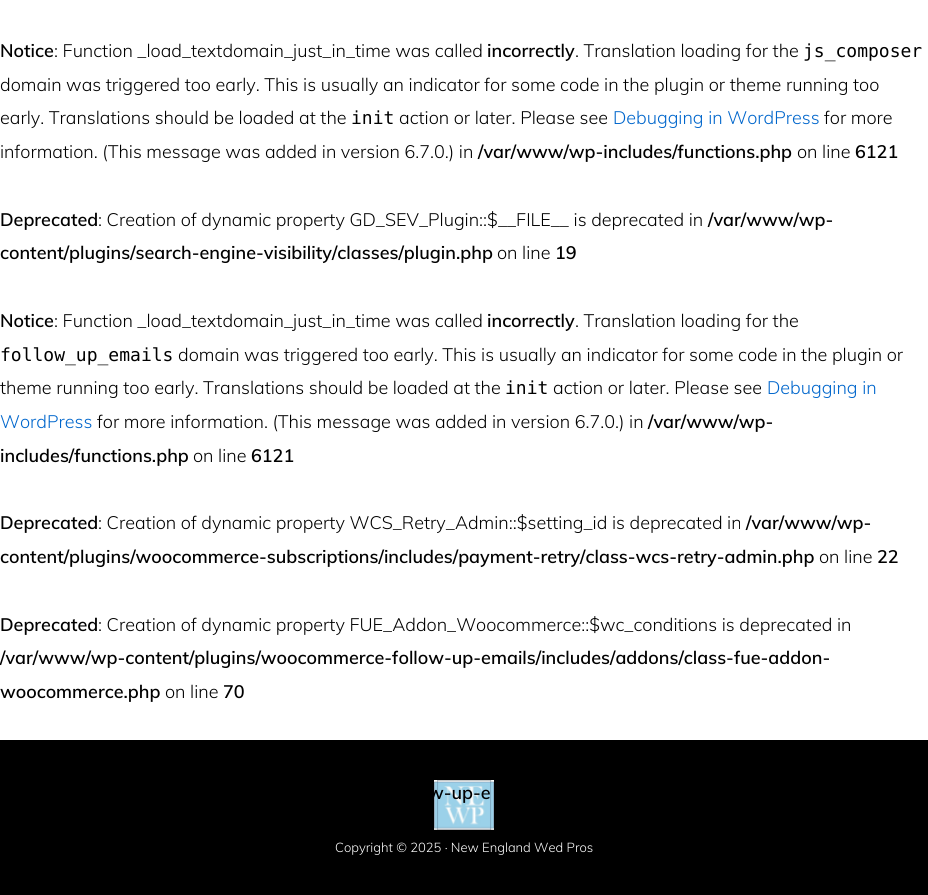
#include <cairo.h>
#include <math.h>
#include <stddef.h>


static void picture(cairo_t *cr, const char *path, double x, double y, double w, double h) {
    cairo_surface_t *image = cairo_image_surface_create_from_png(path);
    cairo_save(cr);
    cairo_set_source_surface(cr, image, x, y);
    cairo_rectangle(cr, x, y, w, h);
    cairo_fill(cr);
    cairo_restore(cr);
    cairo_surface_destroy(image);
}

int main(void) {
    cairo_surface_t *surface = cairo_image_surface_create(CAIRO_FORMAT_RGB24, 928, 895);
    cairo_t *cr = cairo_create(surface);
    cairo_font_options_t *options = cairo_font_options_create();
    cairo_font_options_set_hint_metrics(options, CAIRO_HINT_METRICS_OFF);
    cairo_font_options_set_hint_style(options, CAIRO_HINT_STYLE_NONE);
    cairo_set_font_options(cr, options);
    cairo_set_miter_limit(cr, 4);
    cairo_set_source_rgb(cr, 1, 1, 1);
    cairo_paint(cr);
    cairo_select_font_face(cr, "Muli SemiBold", CAIRO_FONT_SLANT_NORMAL, CAIRO_FONT_WEIGHT_NORMAL);
    cairo_set_font_size(cr, 18);
    cairo_set_source_rgb(cr, 0, 0, 0);
    cairo_move_to(cr, 0, 57);
    cairo_show_text(cr, "Notice");
    cairo_select_font_face(cr, "Muli Light", CAIRO_FONT_SLANT_NORMAL, CAIRO_FONT_WEIGHT_NORMAL);
    cairo_move_to(cr, 54, 57);
    cairo_show_text(cr, ": Function _load_textdomain_just_in_time was called");
    cairo_select_font_face(cr, "Muli SemiBold", CAIRO_FONT_SLANT_NORMAL, CAIRO_FONT_WEIGHT_NORMAL);
    cairo_move_to(cr, 487, 57);
    cairo_show_text(cr, "incorrectly");
    cairo_select_font_face(cr, "Muli Light", CAIRO_FONT_SLANT_NORMAL, CAIRO_FONT_WEIGHT_NORMAL);
    cairo_move_to(cr, 575, 57);
    cairo_show_text(cr, ". Translation loading for the");
    cairo_select_font_face(cr, "DejaVu Sans Mono", CAIRO_FONT_SLANT_NORMAL, CAIRO_FONT_WEIGHT_NORMAL);
    cairo_move_to(cr, 803, 57);
    cairo_show_text(cr, "js_composer");
    cairo_select_font_face(cr, "Muli Light", CAIRO_FONT_SLANT_NORMAL, CAIRO_FONT_WEIGHT_NORMAL);
    cairo_move_to(cr, 0, 91);
    cairo_show_text(cr, "domain was triggered too early. This is usually an indicator for some code in the plugin or theme running too");
    cairo_move_to(cr, 0, 124);
    cairo_show_text(cr, "early. Translations should be loaded at the");
    cairo_select_font_face(cr, "DejaVu Sans Mono", CAIRO_FONT_SLANT_NORMAL, CAIRO_FONT_WEIGHT_NORMAL);
    cairo_move_to(cr, 351, 124);
    cairo_show_text(cr, "init");
    cairo_select_font_face(cr, "Muli Light", CAIRO_FONT_SLANT_NORMAL, CAIRO_FONT_WEIGHT_NORMAL);
    cairo_move_to(cr, 399, 124);
    cairo_show_text(cr, "action or later. Please see");
    cairo_set_source_rgb(cr, 0, 0.4, 0.8);
    cairo_move_to(cr, 613, 124);
    cairo_show_text(cr, "Debugging in WordPress");
    cairo_set_source_rgb(cr, 0, 0, 0);
    cairo_move_to(cr, 824, 124);
    cairo_show_text(cr, "for more");
    cairo_move_to(cr, 0, 158);
    cairo_show_text(cr, "information. (This message was added in version 6.7.0.) in");
    cairo_select_font_face(cr, "Muli SemiBold", CAIRO_FONT_SLANT_NORMAL, CAIRO_FONT_WEIGHT_NORMAL);
    cairo_move_to(cr, 478, 158);
    cairo_show_text(cr, "/var/www/wp-includes/functions.php");
    cairo_select_font_face(cr, "Muli Light", CAIRO_FONT_SLANT_NORMAL, CAIRO_FONT_WEIGHT_NORMAL);
    cairo_move_to(cr, 797, 158);
    cairo_show_text(cr, "on line");
    cairo_select_font_face(cr, "Muli SemiBold", CAIRO_FONT_SLANT_NORMAL, CAIRO_FONT_WEIGHT_NORMAL);
    cairo_move_to(cr, 855, 158);
    cairo_show_text(cr, "6121");
    cairo_move_to(cr, 0, 226);
    cairo_show_text(cr, "Deprecated");
    cairo_select_font_face(cr, "Muli Light", CAIRO_FONT_SLANT_NORMAL, CAIRO_FONT_WEIGHT_NORMAL);
    cairo_move_to(cr, 98, 226);
    cairo_show_text(cr, ": Creation of dynamic property GD_SEV_Plugin::$__FILE__ is deprecated in");
    cairo_select_font_face(cr, "Muli SemiBold", CAIRO_FONT_SLANT_NORMAL, CAIRO_FONT_WEIGHT_NORMAL);
    cairo_move_to(cr, 708, 226);
    cairo_show_text(cr, "/var/www/wp-");
    cairo_move_to(cr, 0, 259);
    cairo_show_text(cr, "content/plugins/search-engine-visibility/classes/plugin.php");
    cairo_select_font_face(cr, "Muli Light", CAIRO_FONT_SLANT_NORMAL, CAIRO_FONT_WEIGHT_NORMAL);
    cairo_move_to(cr, 497, 259);
    cairo_show_text(cr, "on line");
    cairo_select_font_face(cr, "Muli SemiBold", CAIRO_FONT_SLANT_NORMAL, CAIRO_FONT_WEIGHT_NORMAL);
    cairo_move_to(cr, 555, 259);
    cairo_show_text(cr, "19");
    cairo_move_to(cr, 0, 327);
    cairo_show_text(cr, "Notice");
    cairo_select_font_face(cr, "Muli Light", CAIRO_FONT_SLANT_NORMAL, CAIRO_FONT_WEIGHT_NORMAL);
    cairo_move_to(cr, 54, 327);
    cairo_show_text(cr, ": Function _load_textdomain_just_in_time was called");
    cairo_select_font_face(cr, "Muli SemiBold", CAIRO_FONT_SLANT_NORMAL, CAIRO_FONT_WEIGHT_NORMAL);
    cairo_move_to(cr, 487, 327);
    cairo_show_text(cr, "incorrectly");
    cairo_select_font_face(cr, "Muli Light", CAIRO_FONT_SLANT_NORMAL, CAIRO_FONT_WEIGHT_NORMAL);
    cairo_move_to(cr, 575, 327);
    cairo_show_text(cr, ". Translation loading for the");
    cairo_select_font_face(cr, "DejaVu Sans Mono", CAIRO_FONT_SLANT_NORMAL, CAIRO_FONT_WEIGHT_NORMAL);
    cairo_move_to(cr, 0, 361);
    cairo_show_text(cr, "follow_up_emails");
    cairo_select_font_face(cr, "Muli Light", CAIRO_FONT_SLANT_NORMAL, CAIRO_FONT_WEIGHT_NORMAL);
    cairo_move_to(cr, 178, 361);
    cairo_show_text(cr, "domain was triggered too early. This is usually an indicator for some code in the plugin or");
    cairo_move_to(cr, 0, 394);
    cairo_show_text(cr, "theme running too early. Translations should be loaded at the");
    cairo_select_font_face(cr, "DejaVu Sans Mono", CAIRO_FONT_SLANT_NORMAL, CAIRO_FONT_WEIGHT_NORMAL);
    cairo_move_to(cr, 505, 394);
    cairo_show_text(cr, "init");
    cairo_select_font_face(cr, "Muli Light", CAIRO_FONT_SLANT_NORMAL, CAIRO_FONT_WEIGHT_NORMAL);
    cairo_move_to(cr, 553, 394);
    cairo_show_text(cr, "action or later. Please see");
    cairo_set_source_rgb(cr, 0, 0.4, 0.8);
    cairo_move_to(cr, 767, 394);
    cairo_show_text(cr, "Debugging in");
    cairo_move_to(cr, 0, 428);
    cairo_show_text(cr, "WordPress");
    cairo_set_source_rgb(cr, 0, 0, 0);
    cairo_move_to(cr, 97, 428);
    cairo_show_text(cr, "for more information. (This message was added in version 6.7.0.) in");
    cairo_select_font_face(cr, "Muli SemiBold", CAIRO_FONT_SLANT_NORMAL, CAIRO_FONT_WEIGHT_NORMAL);
    cairo_move_to(cr, 648, 428);
    cairo_show_text(cr, "/var/www/wp-");
    cairo_move_to(cr, 0, 462);
    cairo_show_text(cr, "includes/functions.php");
    cairo_select_font_face(cr, "Muli Light", CAIRO_FONT_SLANT_NORMAL, CAIRO_FONT_WEIGHT_NORMAL);
    cairo_move_to(cr, 193, 462);
    cairo_show_text(cr, "on line");
    cairo_select_font_face(cr, "Muli SemiBold", CAIRO_FONT_SLANT_NORMAL, CAIRO_FONT_WEIGHT_NORMAL);
    cairo_move_to(cr, 251, 462);
    cairo_show_text(cr, "6121");
    cairo_move_to(cr, 0, 529);
    cairo_show_text(cr, "Deprecated");
    cairo_select_font_face(cr, "Muli Light", CAIRO_FONT_SLANT_NORMAL, CAIRO_FONT_WEIGHT_NORMAL);
    cairo_move_to(cr, 98, 529);
    cairo_show_text(cr, ": Creation of dynamic property WCS_Retry_Admin::$setting_id is deprecated in");
    cairo_select_font_face(cr, "Muli SemiBold", CAIRO_FONT_SLANT_NORMAL, CAIRO_FONT_WEIGHT_NORMAL);
    cairo_move_to(cr, 746, 529);
    cairo_show_text(cr, "/var/www/wp-");
    cairo_move_to(cr, 0, 563);
    cairo_show_text(cr, "content/plugins/woocommerce-subscriptions/includes/payment-retry/class-wcs-retry-admin.php");
    cairo_select_font_face(cr, "Muli Light", CAIRO_FONT_SLANT_NORMAL, CAIRO_FONT_WEIGHT_NORMAL);
    cairo_move_to(cr, 819, 563);
    cairo_show_text(cr, "on line");
    cairo_select_font_face(cr, "Muli SemiBold", CAIRO_FONT_SLANT_NORMAL, CAIRO_FONT_WEIGHT_NORMAL);
    cairo_move_to(cr, 877, 563);
    cairo_show_text(cr, "22");
    cairo_move_to(cr, 0, 631);
    cairo_show_text(cr, "Deprecated");
    cairo_select_font_face(cr, "Muli Light", CAIRO_FONT_SLANT_NORMAL, CAIRO_FONT_WEIGHT_NORMAL);
    cairo_move_to(cr, 98, 631);
    cairo_show_text(cr, ": Creation of dynamic property FUE_Addon_Woocommerce::$wc_conditions is deprecated in");
    cairo_select_font_face(cr, "Muli SemiBold", CAIRO_FONT_SLANT_NORMAL, CAIRO_FONT_WEIGHT_NORMAL);
    cairo_move_to(cr, 0, 664);
    cairo_show_text(cr, "/var/www/wp-content/plugins/woocommerce-follow-up-emails/includes/addons/class-fue-addon-");
    cairo_move_to(cr, 0, 698);
    cairo_show_text(cr, "woocommerce.php");
    cairo_select_font_face(cr, "Muli Light", CAIRO_FONT_SLANT_NORMAL, CAIRO_FONT_WEIGHT_NORMAL);
    cairo_move_to(cr, 165, 698);
    cairo_show_text(cr, "on line");
    cairo_select_font_face(cr, "Muli SemiBold", CAIRO_FONT_SLANT_NORMAL, CAIRO_FONT_WEIGHT_NORMAL);
    cairo_move_to(cr, 223, 698);
    cairo_show_text(cr, "70");
    cairo_rectangle(cr, 0, 740, 928, 155);
    cairo_fill(cr);
    picture(cr, "img1.png", 434, 780, 60, 50);
    cairo_move_to(cr, 428, 799);
    cairo_show_text(cr, "w-up-e");
    cairo_select_font_face(cr, "Muli Light", CAIRO_FONT_SLANT_NORMAL, CAIRO_FONT_WEIGHT_NORMAL);
    cairo_set_font_size(cr, 13);
    cairo_set_source_rgb(cr, 1, 1, 1);
    cairo_move_to(cr, 335, 852);
    cairo_show_text(cr, "Copyright © 2025 · New England Wed Pros");
    cairo_surface_write_to_png(surface, "page.png");
    cairo_font_options_destroy(options);
    cairo_destroy(cr);
    cairo_surface_destroy(surface);
    return 0;
}
